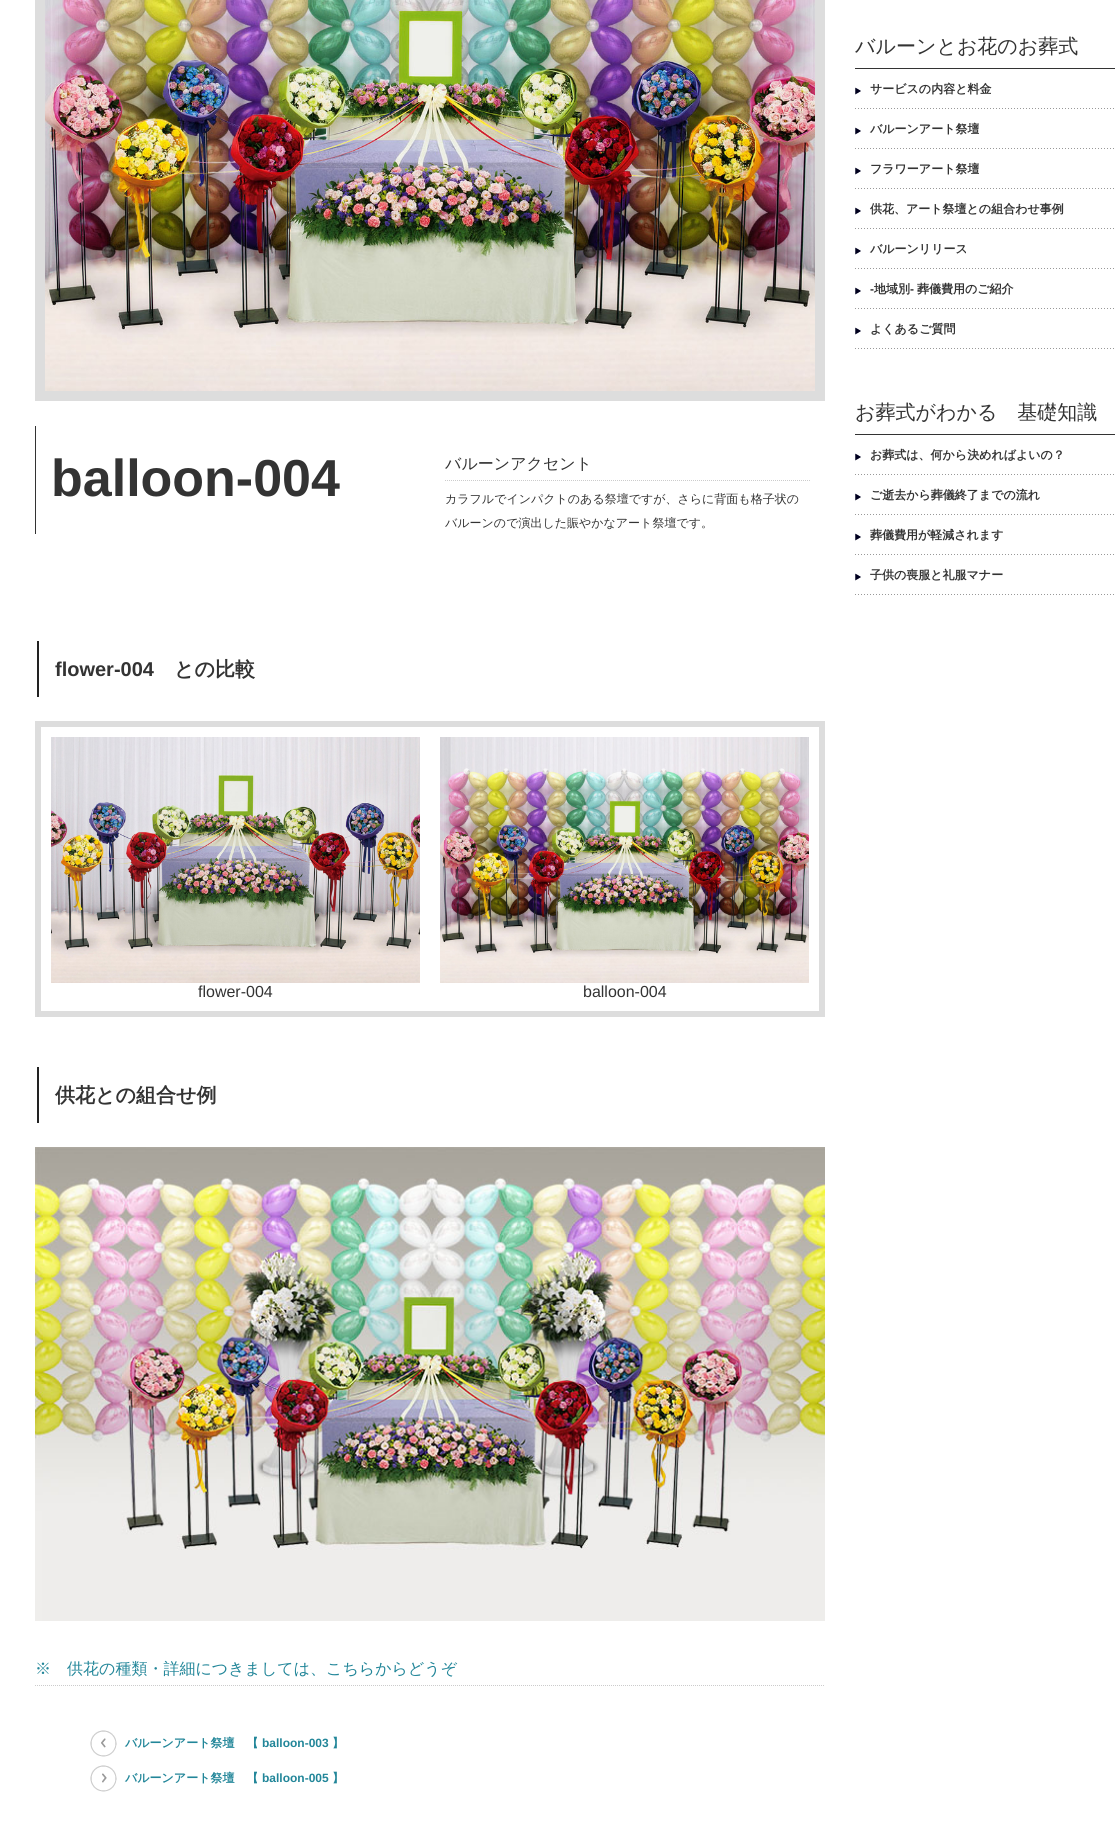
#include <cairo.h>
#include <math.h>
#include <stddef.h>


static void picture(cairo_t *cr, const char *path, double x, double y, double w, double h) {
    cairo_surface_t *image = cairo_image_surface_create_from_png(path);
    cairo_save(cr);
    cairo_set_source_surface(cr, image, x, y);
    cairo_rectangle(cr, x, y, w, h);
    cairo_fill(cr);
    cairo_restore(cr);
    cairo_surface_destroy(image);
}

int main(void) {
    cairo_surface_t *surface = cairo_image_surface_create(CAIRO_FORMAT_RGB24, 1115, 1822);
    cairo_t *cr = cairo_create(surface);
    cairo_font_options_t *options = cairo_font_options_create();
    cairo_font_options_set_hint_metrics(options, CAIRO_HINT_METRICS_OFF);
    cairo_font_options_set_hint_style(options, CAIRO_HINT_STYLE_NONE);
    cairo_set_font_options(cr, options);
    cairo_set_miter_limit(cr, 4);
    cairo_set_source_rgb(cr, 1, 1, 1);
    cairo_paint(cr);
    cairo_set_source_rgb(cr, 0.2, 0.2, 0.2);
    cairo_rectangle(cr, 855, 68, 260, 1);
    cairo_fill(cr);
    cairo_select_font_face(cr, "WenQuanYi Zen Hei Medium", CAIRO_FONT_SLANT_NORMAL, CAIRO_FONT_WEIGHT_NORMAL);
    cairo_set_font_size(cr, 20);
    cairo_move_to(cr, 855, 53);
    cairo_show_text(cr, "バルーンとお花のお葬式");
    picture(cr, "img1.png", 855, 87, 259, 22);
    cairo_select_font_face(cr, "WenQuanYi Zen Hei", CAIRO_FONT_SLANT_NORMAL, CAIRO_FONT_WEIGHT_BOLD);
    cairo_set_font_size(cr, 12);
    cairo_move_to(cr, 870, 93);
    cairo_show_text(cr, "サービスの内容と料金");
    picture(cr, "img1.png", 855, 127, 259, 22);
    cairo_move_to(cr, 870, 133);
    cairo_show_text(cr, "バルーンアート祭壇");
    picture(cr, "img1.png", 855, 167, 259, 22);
    cairo_move_to(cr, 870, 173);
    cairo_show_text(cr, "フラワーアート祭壇");
    picture(cr, "img1.png", 855, 207, 259, 22);
    cairo_move_to(cr, 870, 213);
    cairo_show_text(cr, "供花、アート祭壇との組合わせ事例");
    picture(cr, "img1.png", 855, 247, 259, 22);
    cairo_move_to(cr, 870, 253);
    cairo_show_text(cr, "バルーンリリース");
    picture(cr, "img1.png", 855, 287, 259, 22);
    cairo_select_font_face(cr, "Liberation Sans", CAIRO_FONT_SLANT_NORMAL, CAIRO_FONT_WEIGHT_BOLD);
    cairo_move_to(cr, 870, 293);
    cairo_show_text(cr, "-");
    cairo_select_font_face(cr, "WenQuanYi Zen Hei", CAIRO_FONT_SLANT_NORMAL, CAIRO_FONT_WEIGHT_BOLD);
    cairo_move_to(cr, 874, 293);
    cairo_show_text(cr, "地域別");
    cairo_select_font_face(cr, "Liberation Sans", CAIRO_FONT_SLANT_NORMAL, CAIRO_FONT_WEIGHT_BOLD);
    cairo_move_to(cr, 910, 293);
    cairo_show_text(cr, "-");
    cairo_select_font_face(cr, "WenQuanYi Zen Hei", CAIRO_FONT_SLANT_NORMAL, CAIRO_FONT_WEIGHT_BOLD);
    cairo_move_to(cr, 917, 293);
    cairo_show_text(cr, "葬儀費用のご紹介");
    picture(cr, "img1.png", 855, 327, 259, 22);
    cairo_move_to(cr, 870, 333);
    cairo_show_text(cr, "よくあるご質問");
    cairo_rectangle(cr, 855, 434, 260, 1);
    cairo_fill(cr);
    cairo_select_font_face(cr, "WenQuanYi Zen Hei Medium", CAIRO_FONT_SLANT_NORMAL, CAIRO_FONT_WEIGHT_NORMAL);
    cairo_set_font_size(cr, 20);
    cairo_move_to(cr, 855, 419);
    cairo_show_text(cr, "お葬式がわかる　基礎知識");
    picture(cr, "img1.png", 855, 453, 259, 22);
    cairo_select_font_face(cr, "WenQuanYi Zen Hei", CAIRO_FONT_SLANT_NORMAL, CAIRO_FONT_WEIGHT_BOLD);
    cairo_set_font_size(cr, 12);
    cairo_move_to(cr, 870, 459);
    cairo_show_text(cr, "お葬式は、何から決めればよいの？");
    picture(cr, "img1.png", 855, 493, 259, 22);
    cairo_move_to(cr, 870, 499);
    cairo_show_text(cr, "ご逝去から葬儀終了までの流れ");
    picture(cr, "img1.png", 855, 533, 259, 22);
    cairo_move_to(cr, 870, 539);
    cairo_show_text(cr, "葬儀費用が軽減されます");
    picture(cr, "img1.png", 855, 573, 259, 22);
    cairo_move_to(cr, 870, 579);
    cairo_show_text(cr, "子供の喪服と礼服マナー");
    cairo_rectangle(cr, 40, -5, 780, 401);
    cairo_set_source_rgb(cr, 0.867, 0.867, 0.867);
    cairo_set_line_width(cr, 10);
    cairo_stroke(cr);
    picture(cr, "img2.png", 45, 0, 770, 391);
    cairo_set_source_rgb(cr, 0.2, 0.2, 0.2);
    cairo_rectangle(cr, 35, 426, 1, 108);
    cairo_fill(cr);
    cairo_select_font_face(cr, "Liberation Sans", CAIRO_FONT_SLANT_NORMAL, CAIRO_FONT_WEIGHT_BOLD);
    cairo_set_font_size(cr, 52);
    cairo_move_to(cr, 51, 496);
    cairo_show_text(cr, "balloon-004");
    cairo_new_path(cr);
    cairo_move_to(cr, 445, 480.5);
    cairo_line_to(cr, 810, 480.5);
    cairo_set_source_rgb(cr, 0.8, 0.8, 0.8);
    cairo_set_line_width(cr, 1);
    cairo_set_dash(cr, (double[]){1, 1}, 2, 0);
    cairo_stroke(cr);
    cairo_select_font_face(cr, "WenQuanYi Zen Hei Medium", CAIRO_FONT_SLANT_NORMAL, CAIRO_FONT_WEIGHT_NORMAL);
    cairo_set_font_size(cr, 16);
    cairo_set_source_rgb(cr, 0.2, 0.2, 0.2);
    cairo_move_to(cr, 445, 469);
    cairo_show_text(cr, "バルーンアクセント");
    cairo_set_font_size(cr, 12);
    cairo_move_to(cr, 445, 503);
    cairo_show_text(cr, "カラフルでインパクトのある祭壇ですが、さらに背面も格子状の");
    cairo_move_to(cr, 445, 527);
    cairo_show_text(cr, "バルーンので演出した賑やかなアート祭壇です。");
    cairo_set_source_rgb(cr, 0.133, 0.133, 0.133);
    cairo_rectangle(cr, 37, 641, 2, 56);
    cairo_fill(cr);
    cairo_select_font_face(cr, "Liberation Sans", CAIRO_FONT_SLANT_NORMAL, CAIRO_FONT_WEIGHT_BOLD);
    cairo_set_font_size(cr, 20);
    cairo_set_source_rgb(cr, 0.2, 0.2, 0.2);
    cairo_move_to(cr, 55, 676);
    cairo_show_text(cr, "flower-004");
    cairo_select_font_face(cr, "WenQuanYi Zen Hei", CAIRO_FONT_SLANT_NORMAL, CAIRO_FONT_WEIGHT_BOLD);
    cairo_move_to(cr, 174, 676);
    cairo_show_text(cr, "との比較");
    cairo_rectangle(cr, 38, 724, 784, 290);
    cairo_set_source_rgb(cr, 0.867, 0.867, 0.867);
    cairo_set_line_width(cr, 6);
    cairo_set_dash(cr, NULL, 0, 0);
    cairo_stroke(cr);
    picture(cr, "img3.png", 51, 737, 369, 246);
    cairo_select_font_face(cr, "Liberation Sans", CAIRO_FONT_SLANT_NORMAL, CAIRO_FONT_WEIGHT_NORMAL);
    cairo_set_font_size(cr, 16);
    cairo_set_source_rgb(cr, 0.2, 0.2, 0.2);
    cairo_move_to(cr, 198, 997);
    cairo_show_text(cr, "flower-004");
    picture(cr, "img4.png", 440, 737, 369, 246);
    cairo_move_to(cr, 583, 997);
    cairo_show_text(cr, "balloon-004");
    cairo_set_source_rgb(cr, 0.133, 0.133, 0.133);
    cairo_rectangle(cr, 37, 1067, 2, 56);
    cairo_fill(cr);
    cairo_select_font_face(cr, "WenQuanYi Zen Hei", CAIRO_FONT_SLANT_NORMAL, CAIRO_FONT_WEIGHT_BOLD);
    cairo_set_font_size(cr, 20);
    cairo_set_source_rgb(cr, 0.2, 0.2, 0.2);
    cairo_move_to(cr, 55, 1102);
    cairo_show_text(cr, "供花との組合せ例");
    picture(cr, "img5.png", 35, 1147, 790, 474);
    cairo_new_path(cr);
    cairo_move_to(cr, 35, 1685.5);
    cairo_line_to(cr, 825, 1685.5);
    cairo_set_source_rgb(cr, 0.8, 0.8, 0.8);
    cairo_set_line_width(cr, 1);
    cairo_set_dash(cr, (double[]){1, 1}, 2, 0);
    cairo_stroke(cr);
    cairo_select_font_face(cr, "WenQuanYi Zen Hei Medium", CAIRO_FONT_SLANT_NORMAL, CAIRO_FONT_WEIGHT_NORMAL);
    cairo_set_font_size(cr, 16);
    cairo_set_source_rgb(cr, 0.133, 0.525, 0.6);
    cairo_move_to(cr, 35, 1674);
    cairo_show_text(cr, "※　供花の種類・詳細につきましては、こちらからどうぞ");
    picture(cr, "img6.png", 90, 1730, 27, 27);
    cairo_select_font_face(cr, "WenQuanYi Zen Hei", CAIRO_FONT_SLANT_NORMAL, CAIRO_FONT_WEIGHT_BOLD);
    cairo_set_font_size(cr, 12);
    cairo_move_to(cr, 125, 1747);
    cairo_show_text(cr, "バルーンアート祭壇　【");
    cairo_select_font_face(cr, "Liberation Sans", CAIRO_FONT_SLANT_NORMAL, CAIRO_FONT_WEIGHT_BOLD);
    cairo_move_to(cr, 262, 1747);
    cairo_show_text(cr, "balloon-003");
    cairo_select_font_face(cr, "WenQuanYi Zen Hei", CAIRO_FONT_SLANT_NORMAL, CAIRO_FONT_WEIGHT_BOLD);
    cairo_move_to(cr, 332, 1747);
    cairo_show_text(cr, "】");
    picture(cr, "img7.png", 90, 1765, 27, 27);
    cairo_move_to(cr, 125, 1782);
    cairo_show_text(cr, "バルーンアート祭壇　【");
    cairo_select_font_face(cr, "Liberation Sans", CAIRO_FONT_SLANT_NORMAL, CAIRO_FONT_WEIGHT_BOLD);
    cairo_move_to(cr, 262, 1782);
    cairo_show_text(cr, "balloon-005");
    cairo_select_font_face(cr, "WenQuanYi Zen Hei", CAIRO_FONT_SLANT_NORMAL, CAIRO_FONT_WEIGHT_BOLD);
    cairo_move_to(cr, 332, 1782);
    cairo_show_text(cr, "】");
    cairo_surface_write_to_png(surface, "page.png");
    cairo_font_options_destroy(options);
    cairo_destroy(cr);
    cairo_surface_destroy(surface);
    return 0;
}
